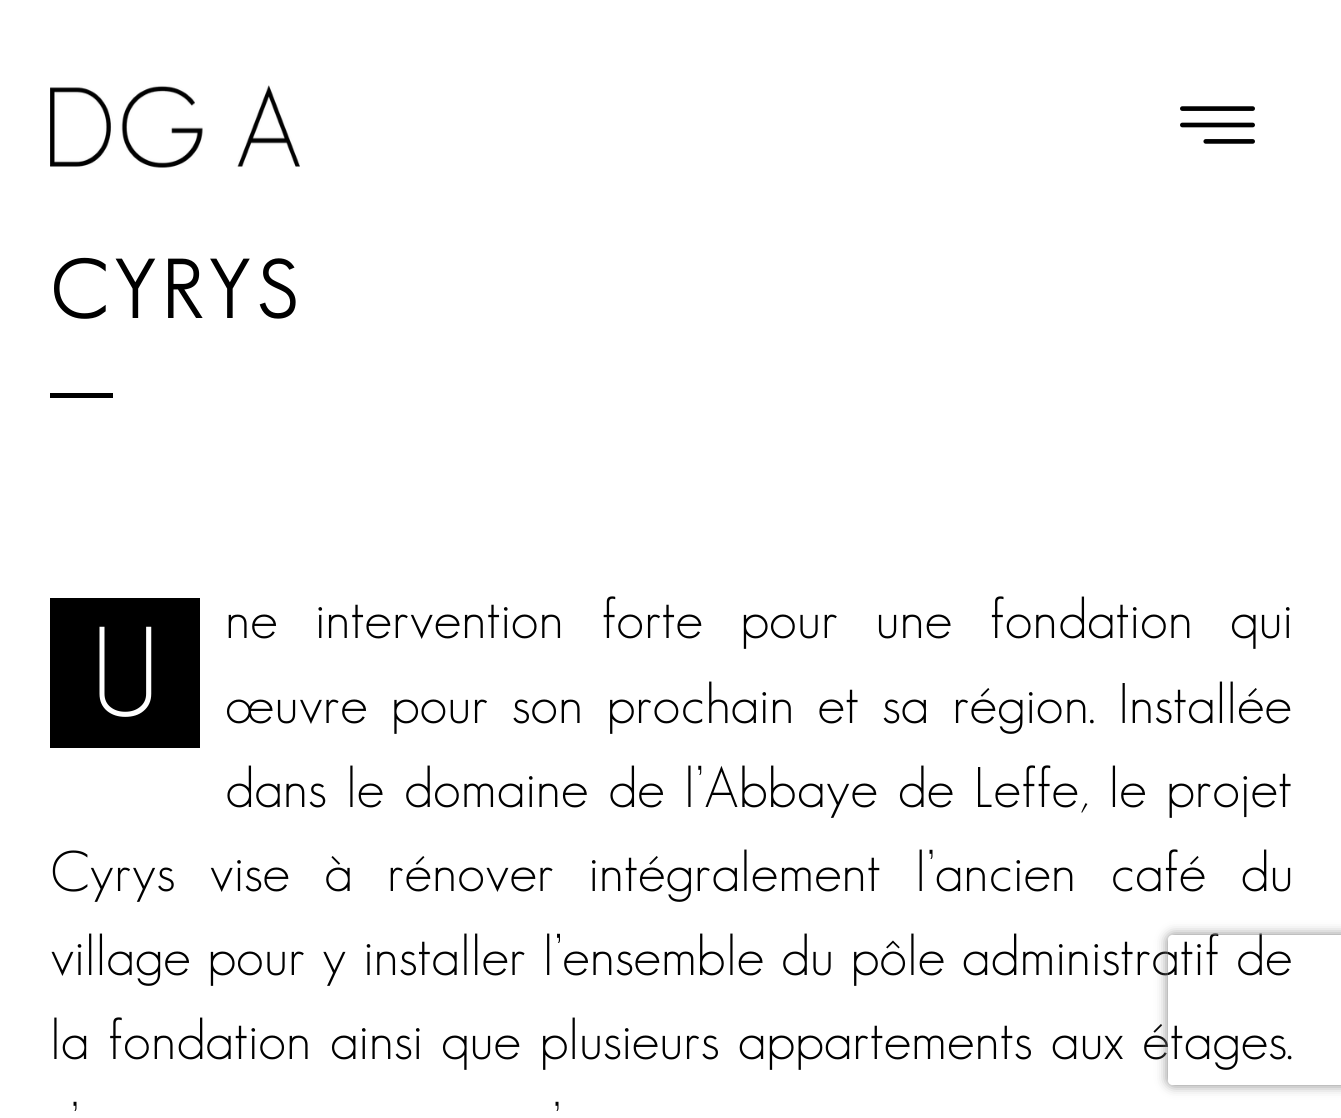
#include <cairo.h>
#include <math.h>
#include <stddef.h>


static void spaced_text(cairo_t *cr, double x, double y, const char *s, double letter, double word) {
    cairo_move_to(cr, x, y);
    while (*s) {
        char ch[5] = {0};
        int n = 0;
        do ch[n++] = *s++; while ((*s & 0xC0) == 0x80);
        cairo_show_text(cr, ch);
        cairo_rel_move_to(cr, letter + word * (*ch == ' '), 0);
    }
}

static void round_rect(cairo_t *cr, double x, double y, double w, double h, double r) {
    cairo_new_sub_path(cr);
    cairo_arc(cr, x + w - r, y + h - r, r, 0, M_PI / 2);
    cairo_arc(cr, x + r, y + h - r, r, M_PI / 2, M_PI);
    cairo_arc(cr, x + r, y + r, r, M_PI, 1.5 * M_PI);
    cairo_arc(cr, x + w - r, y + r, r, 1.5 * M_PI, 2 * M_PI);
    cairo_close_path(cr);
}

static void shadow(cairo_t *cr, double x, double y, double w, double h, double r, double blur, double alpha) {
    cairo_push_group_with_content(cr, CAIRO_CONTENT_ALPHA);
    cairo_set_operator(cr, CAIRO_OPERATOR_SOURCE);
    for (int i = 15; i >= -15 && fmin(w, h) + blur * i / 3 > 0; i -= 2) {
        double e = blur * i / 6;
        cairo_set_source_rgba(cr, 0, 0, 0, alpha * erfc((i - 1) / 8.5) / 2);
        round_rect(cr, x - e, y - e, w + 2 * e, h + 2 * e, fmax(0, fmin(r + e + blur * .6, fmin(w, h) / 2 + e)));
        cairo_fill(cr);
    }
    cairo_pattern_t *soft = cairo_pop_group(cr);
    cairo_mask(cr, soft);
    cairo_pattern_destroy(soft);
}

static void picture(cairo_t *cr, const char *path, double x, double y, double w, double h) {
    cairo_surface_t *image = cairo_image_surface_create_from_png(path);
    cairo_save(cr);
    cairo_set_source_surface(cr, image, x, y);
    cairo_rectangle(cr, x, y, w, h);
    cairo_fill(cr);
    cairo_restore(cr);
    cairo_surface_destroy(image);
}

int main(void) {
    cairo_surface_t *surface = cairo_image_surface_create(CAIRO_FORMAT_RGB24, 1341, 1118);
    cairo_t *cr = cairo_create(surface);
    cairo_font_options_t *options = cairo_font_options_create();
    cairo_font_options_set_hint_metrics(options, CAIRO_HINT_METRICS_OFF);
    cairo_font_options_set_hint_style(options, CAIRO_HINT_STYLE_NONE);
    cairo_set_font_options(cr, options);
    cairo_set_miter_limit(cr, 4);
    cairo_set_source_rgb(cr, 1, 1, 1);
    cairo_paint(cr);
    picture(cr, "img1.png", 50, 85, 250, 83);
    picture(cr, "img2.png", 1180, 106, 75, 38);
    cairo_select_font_face(cr, "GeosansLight", CAIRO_FONT_SLANT_NORMAL, CAIRO_FONT_WEIGHT_BOLD);
    cairo_set_font_size(cr, 80);
    cairo_set_source_rgb(cr, 0, 0, 0);
    spaced_text(cr, 50, 318, "CYRYS", 7.5, 0);
    cairo_rectangle(cr, 50, 393, 63, 5);
    cairo_fill(cr);
    cairo_rectangle(cr, 50, 598, 150, 150);
    cairo_fill(cr);
    cairo_select_font_face(cr, "GeosansLight Light", CAIRO_FONT_SLANT_NORMAL, CAIRO_FONT_WEIGHT_NORMAL);
    cairo_set_font_size(cr, 125);
    cairo_set_source_rgb(cr, 1, 1, 1);
    cairo_move_to(cr, 90, 716);
    cairo_show_text(cr, "U");
    cairo_set_font_size(cr, 56);
    cairo_set_source_rgb(cr, 0, 0, 0);
    spaced_text(cr, 225, 638, "ne intervention forte pour une fondation qui", 0, 23);
    spaced_text(cr, 225, 723, "œuvre pour son prochain et sa région. Installée", 0, 8.75);
    spaced_text(cr, 225, 807, "dans le domaine de l’Abbaye de Leffe, le projet", 0, 5.25);
    spaced_text(cr, 50, 891, "Cyrys vise à rénover intégralement l’ancien café du", 0, 20);
    spaced_text(cr, 50, 975, "village pour y installer l’ensemble du pôle administratif de", 0, 2.25);
    spaced_text(cr, 50, 1059, "la fondation ainsi que plusieurs appartements aux étages.", 0, 4.25);
    spaced_text(cr, 70, 1143, "’", 0, 5);
    spaced_text(cr, 552, 1143, "’", 0, 5);
    cairo_save(cr);
    cairo_set_fill_rule(cr, CAIRO_FILL_RULE_EVEN_ODD);
    cairo_new_path(cr);
    cairo_move_to(cr, 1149, 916);
    cairo_line_to(cr, 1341, 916);
    cairo_line_to(cr, 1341, 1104);
    cairo_line_to(cr, 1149, 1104);
    cairo_close_path(cr);
    cairo_move_to(cr, 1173, 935);
    cairo_line_to(cr, 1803, 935);
    cairo_curve_to(cr, 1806, 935, 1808, 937, 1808, 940);
    cairo_line_to(cr, 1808, 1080);
    cairo_curve_to(cr, 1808, 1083, 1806, 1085, 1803, 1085);
    cairo_line_to(cr, 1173, 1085);
    cairo_curve_to(cr, 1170, 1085, 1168, 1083, 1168, 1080);
    cairo_line_to(cr, 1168, 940);
    cairo_curve_to(cr, 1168, 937, 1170, 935, 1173, 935);
    cairo_close_path(cr);
    cairo_clip(cr);
    cairo_set_source_rgb(cr, 0.502, 0.502, 0.502);
    shadow(cr, 1168, 935, 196, 150, 5, 6, 1);
    cairo_restore(cr);
    cairo_surface_write_to_png(surface, "page.png");
    cairo_font_options_destroy(options);
    cairo_destroy(cr);
    cairo_surface_destroy(surface);
    return 0;
}
